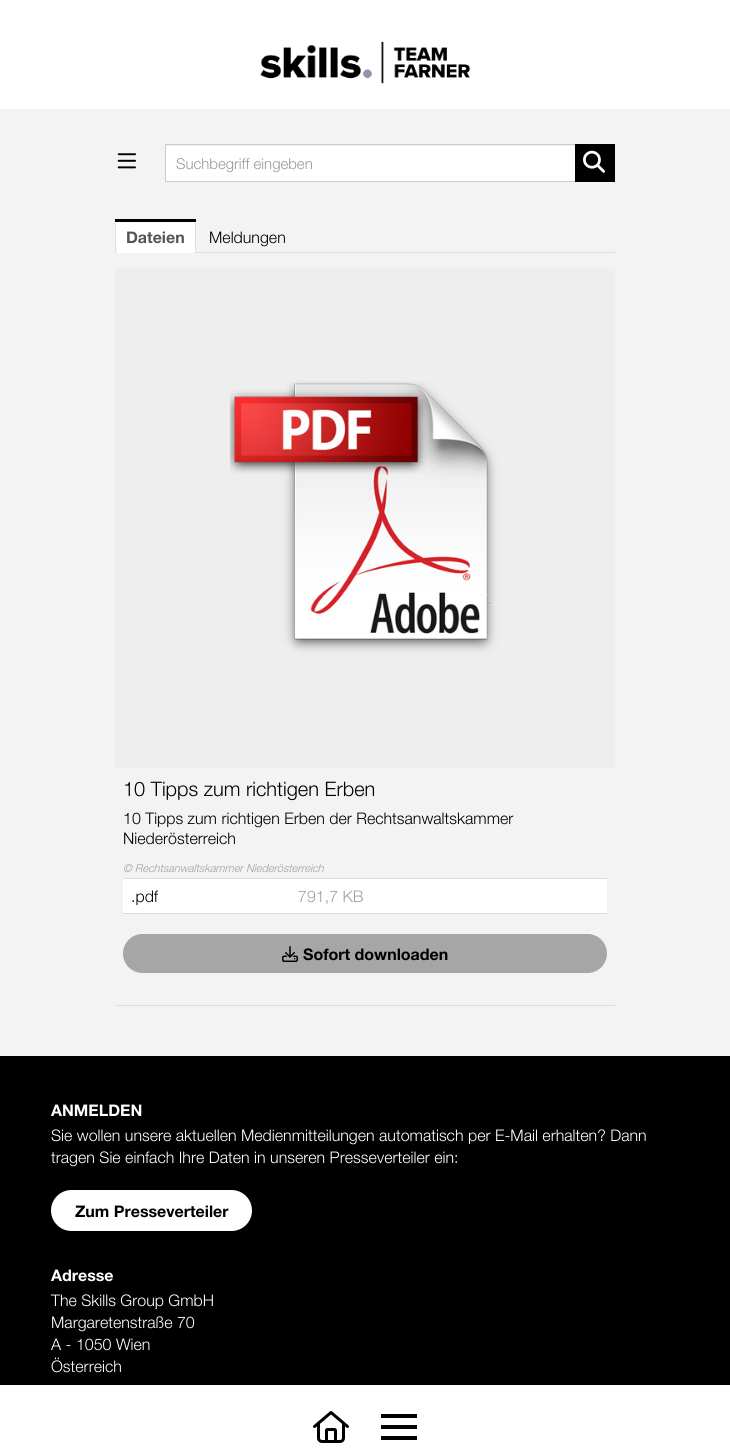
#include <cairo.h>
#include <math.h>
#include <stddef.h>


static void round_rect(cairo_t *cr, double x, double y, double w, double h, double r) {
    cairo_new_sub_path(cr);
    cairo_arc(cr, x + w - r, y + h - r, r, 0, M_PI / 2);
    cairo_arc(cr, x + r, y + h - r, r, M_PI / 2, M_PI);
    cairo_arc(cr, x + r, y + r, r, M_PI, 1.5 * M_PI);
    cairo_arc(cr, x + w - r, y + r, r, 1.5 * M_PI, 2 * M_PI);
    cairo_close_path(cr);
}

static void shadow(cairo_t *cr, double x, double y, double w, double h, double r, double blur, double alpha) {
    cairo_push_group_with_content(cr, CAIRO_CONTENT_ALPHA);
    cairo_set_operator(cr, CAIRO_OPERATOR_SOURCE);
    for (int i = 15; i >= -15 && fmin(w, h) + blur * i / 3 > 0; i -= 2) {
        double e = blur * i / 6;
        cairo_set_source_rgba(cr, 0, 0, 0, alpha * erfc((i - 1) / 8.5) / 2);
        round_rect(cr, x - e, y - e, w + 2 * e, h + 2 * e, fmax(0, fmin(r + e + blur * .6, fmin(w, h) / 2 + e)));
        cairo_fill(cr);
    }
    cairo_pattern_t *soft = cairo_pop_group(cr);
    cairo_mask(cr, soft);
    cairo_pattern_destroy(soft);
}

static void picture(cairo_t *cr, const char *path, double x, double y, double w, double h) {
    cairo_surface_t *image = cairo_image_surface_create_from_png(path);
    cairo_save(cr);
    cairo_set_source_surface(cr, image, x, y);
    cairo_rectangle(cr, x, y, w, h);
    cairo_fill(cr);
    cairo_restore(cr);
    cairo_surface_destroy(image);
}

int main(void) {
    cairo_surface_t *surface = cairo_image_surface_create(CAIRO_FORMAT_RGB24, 730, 1452);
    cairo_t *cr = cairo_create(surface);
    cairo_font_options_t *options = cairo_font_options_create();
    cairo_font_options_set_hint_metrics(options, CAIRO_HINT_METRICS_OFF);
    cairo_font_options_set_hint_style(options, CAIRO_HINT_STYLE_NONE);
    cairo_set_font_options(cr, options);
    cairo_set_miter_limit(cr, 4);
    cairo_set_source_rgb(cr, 0.953, 0.953, 0.953);
    cairo_paint(cr);
    cairo_set_source_rgb(cr, 1, 1, 1);
    cairo_rectangle(cr, 0, 0, 730, 109);
    cairo_fill(cr);
    picture(cr, "img1.png", 260, 41, 210, 43);
    cairo_set_source_rgb(cr, 0, 0, 0);
    cairo_rectangle(cr, 0, 1056, 730, 329);
    cairo_fill(cr);
    cairo_set_source_rgb(cr, 0, 0, 0);
    shadow(cr, -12, 1383, 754, 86, 0, 5.5, 0.3);
    cairo_set_source_rgb(cr, 1, 1, 1);
    cairo_rectangle(cr, 0, 1385, 730, 67);
    cairo_fill(cr);
    picture(cr, "img2.png", 313, 1411, 36, 32);
    cairo_set_source_rgb(cr, 0, 0, 0);
    cairo_rectangle(cr, 381, 1414, 36, 4);
    cairo_fill(cr);
    cairo_rectangle(cr, 381, 1425, 36, 4);
    cairo_fill(cr);
    cairo_rectangle(cr, 381, 1436, 36, 4);
    cairo_fill(cr);
    picture(cr, "img3.png", 117, 153, 19, 16);
    cairo_set_source_rgb(cr, 1, 1, 1);
    cairo_rectangle(cr, 166, 146, 409, 35);
    cairo_fill(cr);
    cairo_set_source_rgb(cr, 0.925, 0.925, 0.925);
    cairo_rectangle(cr, 166, 145, 409, 1);
    cairo_fill(cr);
    cairo_rectangle(cr, 165.5, 144.5, 449, 37);
    cairo_set_source_rgb(cr, 0.8, 0.8, 0.8);
    cairo_set_line_width(cr, 1);
    cairo_stroke(cr);
    cairo_select_font_face(cr, "Helvetica Neue Light", CAIRO_FONT_SLANT_NORMAL, CAIRO_FONT_WEIGHT_NORMAL);
    cairo_set_font_size(cr, 15);
    cairo_set_source_rgb(cr, 0.6, 0.6, 0.6);
    cairo_move_to(cr, 176, 169);
    cairo_show_text(cr, "Suchbegriff eingeben");
    cairo_set_source_rgb(cr, 0, 0, 0.004);
    cairo_rectangle(cr, 575, 144, 40, 38);
    cairo_fill(cr);
    picture(cr, "img4.png", 583, 150, 22, 23);
    cairo_rectangle(cr, 115, 219, 81, 3);
    cairo_fill(cr);
    cairo_set_source_rgb(cr, 0.867, 0.867, 0.867);
    cairo_rectangle(cr, 115, 252, 500, 1);
    cairo_fill(cr);
    cairo_set_source_rgb(cr, 1, 1, 1);
    round_rect(cr, 115, 222, 81, 31, 2);
    cairo_fill(cr);
    cairo_set_source_rgb(cr, 0.867, 0.867, 0.867);
    cairo_new_path(cr);
    cairo_move_to(cr, 196, 224);
    cairo_curve_to(cr, 196, 223, 195, 222, 194, 222);
    cairo_line_to(cr, 195, 223);
    cairo_line_to(cr, 195, 242);
    cairo_curve_to(cr, 195, 247.5, 195.5, 250.5, 194.5, 251.5);
    cairo_line_to(cr, 195.5, 252.5);
    cairo_line_to(cr, 196, 251);
    cairo_close_path(cr);
    cairo_fill(cr);
    cairo_new_path(cr);
    cairo_move_to(cr, 117, 222);
    cairo_curve_to(cr, 116, 222, 115, 223, 115, 224);
    cairo_line_to(cr, 115, 251);
    cairo_curve_to(cr, 115, 251.5, 115, 252, 115.5, 252.5);
    cairo_line_to(cr, 116.5, 251.5);
    cairo_curve_to(cr, 116, 250.5, 115.5, 227, 116, 224.5);
    cairo_curve_to(cr, 116, 224, 116, 222, 117, 222);
    cairo_close_path(cr);
    cairo_fill(cr);
    cairo_select_font_face(cr, "Helvetica Neue", CAIRO_FONT_SLANT_NORMAL, CAIRO_FONT_WEIGHT_BOLD);
    cairo_set_font_size(cr, 16);
    cairo_set_source_rgb(cr, 0.333, 0.333, 0.333);
    cairo_move_to(cr, 126, 243);
    cairo_show_text(cr, "Dateien");
    cairo_select_font_face(cr, "Helvetica Neue Light", CAIRO_FONT_SLANT_NORMAL, CAIRO_FONT_WEIGHT_NORMAL);
    cairo_set_source_rgb(cr, 0, 0, 0);
    cairo_move_to(cr, 209, 243);
    cairo_show_text(cr, "Meldungen");
    cairo_set_source_rgb(cr, 0.867, 0.867, 0.867);
    cairo_rectangle(cr, 115, 1005, 500, 1);
    cairo_fill(cr);
    picture(cr, "img5.png", 115, 268, 500, 500);
    cairo_set_font_size(cr, 20);
    cairo_set_source_rgb(cr, 0, 0, 0);
    cairo_move_to(cr, 123, 796);
    cairo_show_text(cr, "10 Tipps zum richtigen Erben");
    cairo_set_font_size(cr, 16);
    cairo_move_to(cr, 123, 824);
    cairo_show_text(cr, "10 Tipps zum richtigen Erben der Rechtsanwaltskammer");
    cairo_move_to(cr, 123, 844);
    cairo_show_text(cr, "Niederösterreich");
    cairo_select_font_face(cr, "Helvetica Neue Light", CAIRO_FONT_SLANT_ITALIC, CAIRO_FONT_WEIGHT_NORMAL);
    cairo_set_font_size(cr, 11);
    cairo_set_source_rgb(cr, 0.627, 0.627, 0.627);
    cairo_move_to(cr, 123, 872);
    cairo_show_text(cr, "© Rechtsanwaltskammer Niederösterreich");
    cairo_set_source_rgb(cr, 1, 1, 1);
    cairo_rectangle(cr, 123, 879, 484, 34);
    cairo_fill(cr);
    cairo_set_source_rgb(cr, 0.867, 0.867, 0.867);
    cairo_rectangle(cr, 123, 878, 484, 1);
    cairo_fill(cr);
    cairo_select_font_face(cr, "Helvetica Neue Light", CAIRO_FONT_SLANT_NORMAL, CAIRO_FONT_WEIGHT_NORMAL);
    cairo_set_font_size(cr, 16);
    cairo_set_source_rgb(cr, 0, 0, 0);
    cairo_move_to(cr, 131, 902);
    cairo_show_text(cr, ".pdf");
    cairo_set_source_rgb(cr, 0.867, 0.867, 0.867);
    cairo_rectangle(cr, 123, 913, 485, 1);
    cairo_fill(cr);
    cairo_set_source_rgb(cr, 0.627, 0.627, 0.627);
    cairo_move_to(cr, 298, 902);
    cairo_show_text(cr, "791,7 KB");
    cairo_set_source_rgb(cr, 0.651, 0.651, 0.651);
    round_rect(cr, 123, 934, 484, 39, 19.5);
    cairo_fill(cr);
    picture(cr, "img6.png", 282, 946, 16, 16);
    cairo_select_font_face(cr, "Helvetica Neue", CAIRO_FONT_SLANT_NORMAL, CAIRO_FONT_WEIGHT_BOLD);
    cairo_set_source_rgb(cr, 0, 0, 0);
    cairo_move_to(cr, 303, 960);
    cairo_show_text(cr, "Sofort downloaden");
    cairo_set_source_rgb(cr, 1, 1, 1);
    cairo_move_to(cr, 51, 1116);
    cairo_show_text(cr, "ANMELDEN");
    cairo_select_font_face(cr, "Helvetica Neue Light", CAIRO_FONT_SLANT_NORMAL, CAIRO_FONT_WEIGHT_NORMAL);
    cairo_move_to(cr, 51, 1141);
    cairo_show_text(cr, "Sie wollen unsere aktuellen Medienmitteilungen automatisch per E-Mail erhalten? Dann");
    cairo_move_to(cr, 51, 1163);
    cairo_show_text(cr, "tragen Sie einfach Ihre Daten in unseren Presseverteiler ein:");
    round_rect(cr, 51, 1190, 201, 41, 20.5);
    cairo_fill(cr);
    cairo_select_font_face(cr, "Helvetica Neue", CAIRO_FONT_SLANT_NORMAL, CAIRO_FONT_WEIGHT_BOLD);
    cairo_set_source_rgb(cr, 0, 0, 0);
    cairo_move_to(cr, 75, 1217);
    cairo_show_text(cr, "Zum Presseverteiler");
    cairo_set_source_rgb(cr, 1, 1, 1);
    cairo_move_to(cr, 51, 1281);
    cairo_show_text(cr, "Adresse");
    cairo_select_font_face(cr, "Helvetica Neue Light", CAIRO_FONT_SLANT_NORMAL, CAIRO_FONT_WEIGHT_NORMAL);
    cairo_move_to(cr, 51, 1306);
    cairo_show_text(cr, "The Skills Group GmbH");
    cairo_move_to(cr, 51, 1328);
    cairo_show_text(cr, "Margaretenstraße 70");
    cairo_move_to(cr, 51, 1350);
    cairo_show_text(cr, "A - 1050 Wien");
    cairo_move_to(cr, 51, 1372);
    cairo_show_text(cr, "Österreich");
    cairo_surface_write_to_png(surface, "page.png");
    cairo_font_options_destroy(options);
    cairo_destroy(cr);
    cairo_surface_destroy(surface);
    return 0;
}
